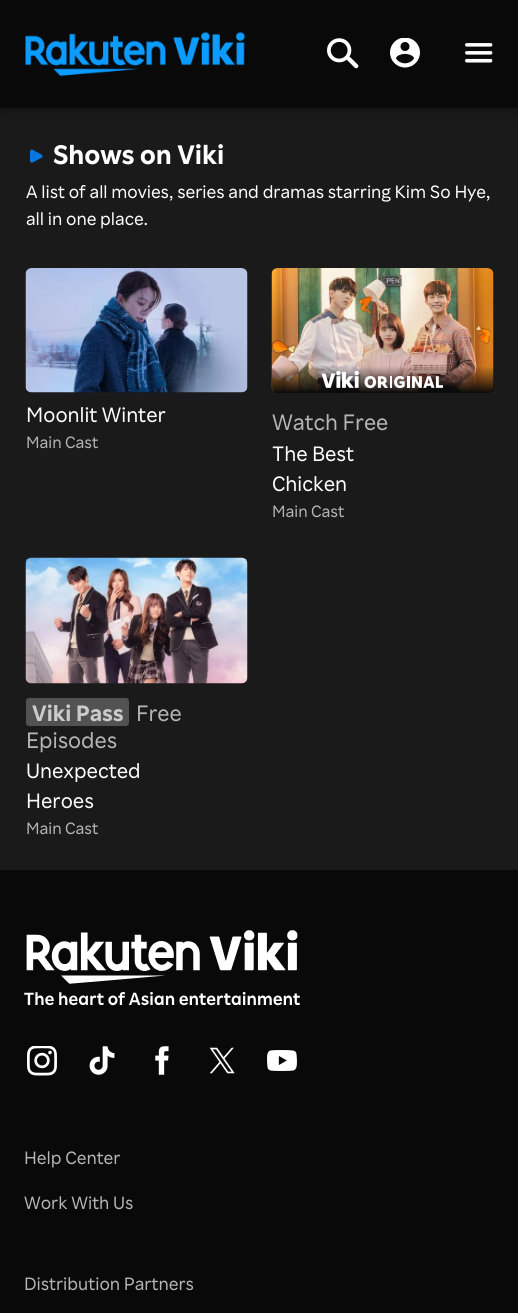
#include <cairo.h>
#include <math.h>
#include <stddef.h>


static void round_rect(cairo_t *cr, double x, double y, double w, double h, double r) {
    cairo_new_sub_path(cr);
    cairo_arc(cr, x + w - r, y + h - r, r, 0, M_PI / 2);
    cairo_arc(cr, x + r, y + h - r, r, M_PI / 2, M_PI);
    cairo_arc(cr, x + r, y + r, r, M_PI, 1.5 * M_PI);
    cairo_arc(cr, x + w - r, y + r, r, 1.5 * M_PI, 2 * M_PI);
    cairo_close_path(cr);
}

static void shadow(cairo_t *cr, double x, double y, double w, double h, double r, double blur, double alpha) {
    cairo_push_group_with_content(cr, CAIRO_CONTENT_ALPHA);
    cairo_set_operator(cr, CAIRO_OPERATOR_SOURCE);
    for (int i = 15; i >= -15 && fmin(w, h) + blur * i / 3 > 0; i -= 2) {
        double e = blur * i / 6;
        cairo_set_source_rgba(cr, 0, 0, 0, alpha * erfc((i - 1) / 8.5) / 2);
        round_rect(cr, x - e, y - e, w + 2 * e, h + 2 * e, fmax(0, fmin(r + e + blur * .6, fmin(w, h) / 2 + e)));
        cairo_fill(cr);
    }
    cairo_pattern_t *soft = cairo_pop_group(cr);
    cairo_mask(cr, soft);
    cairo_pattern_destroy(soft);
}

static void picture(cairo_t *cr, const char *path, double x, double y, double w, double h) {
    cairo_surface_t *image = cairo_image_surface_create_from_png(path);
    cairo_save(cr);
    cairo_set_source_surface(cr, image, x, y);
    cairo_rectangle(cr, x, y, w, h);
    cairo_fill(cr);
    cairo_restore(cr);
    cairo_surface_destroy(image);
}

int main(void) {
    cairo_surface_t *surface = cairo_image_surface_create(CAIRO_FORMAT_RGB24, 518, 1313);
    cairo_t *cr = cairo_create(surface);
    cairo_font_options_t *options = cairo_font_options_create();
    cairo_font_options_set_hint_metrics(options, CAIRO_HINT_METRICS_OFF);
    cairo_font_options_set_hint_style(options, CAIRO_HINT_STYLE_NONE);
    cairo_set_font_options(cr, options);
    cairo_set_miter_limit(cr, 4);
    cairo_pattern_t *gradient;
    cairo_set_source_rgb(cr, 0.102, 0.102, 0.102);
    cairo_paint(cr);
    cairo_set_source_rgb(cr, 0, 0, 0);
    shadow(cr, 0, 24, 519, 84, 0, 7.5, 0.5);
    cairo_set_source_rgb(cr, 0.039, 0.039, 0.039);
    cairo_rectangle(cr, 0, 0, 518, 108);
    cairo_fill(cr);
    picture(cr, "img1.png", 25, 31, 220, 45);
    picture(cr, "img2.png", 327, 38, 32, 31);
    picture(cr, "img3.png", 390, 38, 30, 30);
    picture(cr, "img4.png", 465, 43, 28, 20);
    picture(cr, "img5.png", 29, 149, 14, 14);
    cairo_select_font_face(cr, "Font", CAIRO_FONT_SLANT_NORMAL, CAIRO_FONT_WEIGHT_BOLD);
    cairo_set_font_size(cr, 27);
    cairo_set_source_rgb(cr, 1, 1, 1);
    cairo_move_to(cr, 53, 164);
    cairo_show_text(cr, "Shows on Viki");
    cairo_select_font_face(cr, "Font", CAIRO_FONT_SLANT_NORMAL, CAIRO_FONT_WEIGHT_NORMAL);
    cairo_set_font_size(cr, 18);
    cairo_move_to(cr, 26, 198);
    cairo_show_text(cr, "A list of all movies, series and dramas starring Kim So Hye,");
    cairo_move_to(cr, 26, 225);
    cairo_show_text(cr, "all in one place.");
    picture(cr, "img6.png", 25, 268, 223, 125);
    cairo_set_font_size(cr, 21);
    cairo_move_to(cr, 26, 422);
    cairo_show_text(cr, "Moonlit Winter");
    cairo_set_font_size(cr, 16.5);
    cairo_set_source_rgb(cr, 0.714, 0.714, 0.714);
    cairo_move_to(cr, 26, 448);
    cairo_show_text(cr, "Main Cast");
    picture(cr, "img7.png", 271, 268, 223, 125);
    gradient = cairo_pattern_create_linear(383, 393, 383, 366);
    cairo_pattern_add_color_stop_rgba(gradient, 0, 0.039, 0.039, 0.039, 1);
    cairo_pattern_add_color_stop_rgba(gradient, 1, 0.039, 0.039, 0.039, 0);
    cairo_set_source(cr, gradient);
    cairo_pattern_destroy(gradient);
    cairo_new_path(cr);
    cairo_move_to(cr, 272, 366);
    cairo_line_to(cr, 494, 366);
    cairo_line_to(cr, 494, 387);
    cairo_curve_to(cr, 494, 390.5, 491.5, 393, 488, 393);
    cairo_line_to(cr, 278, 393);
    cairo_curve_to(cr, 274.5, 393, 272, 390.5, 272, 387);
    cairo_close_path(cr);
    cairo_fill(cr);
    picture(cr, "img8.png", 321, 371, 122, 18);
    cairo_set_font_size(cr, 22.5);
    cairo_set_source_rgb(cr, 0.714, 0.714, 0.714);
    cairo_move_to(cr, 272, 430);
    cairo_show_text(cr, "Watch Free");
    cairo_set_font_size(cr, 21);
    cairo_set_source_rgb(cr, 1, 1, 1);
    cairo_move_to(cr, 272, 461);
    cairo_show_text(cr, "The Best");
    cairo_move_to(cr, 272, 491);
    cairo_show_text(cr, "Chicken");
    cairo_set_font_size(cr, 16.5);
    cairo_set_source_rgb(cr, 0.714, 0.714, 0.714);
    cairo_move_to(cr, 272, 517);
    cairo_show_text(cr, "Main Cast");
    picture(cr, "img9.png", 25, 557, 223, 127);
    cairo_set_source_rgb(cr, 0.322, 0.322, 0.322);
    round_rect(cr, 26, 698, 103, 28, 3);
    cairo_fill(cr);
    cairo_select_font_face(cr, "Font", CAIRO_FONT_SLANT_NORMAL, CAIRO_FONT_WEIGHT_BOLD);
    cairo_set_font_size(cr, 22.5);
    cairo_set_source_rgb(cr, 0.796, 0.796, 0.796);
    cairo_move_to(cr, 32, 721);
    cairo_show_text(cr, "Viki Pass");
    cairo_select_font_face(cr, "Font", CAIRO_FONT_SLANT_NORMAL, CAIRO_FONT_WEIGHT_NORMAL);
    cairo_set_source_rgb(cr, 0.714, 0.714, 0.714);
    cairo_move_to(cr, 136, 721);
    cairo_show_text(cr, "Free");
    cairo_move_to(cr, 26, 748);
    cairo_show_text(cr, "Episodes");
    cairo_set_font_size(cr, 21);
    cairo_set_source_rgb(cr, 1, 1, 1);
    cairo_move_to(cr, 26, 778);
    cairo_show_text(cr, "Unexpected");
    cairo_move_to(cr, 26, 808);
    cairo_show_text(cr, "Heroes");
    cairo_set_font_size(cr, 16.5);
    cairo_set_source_rgb(cr, 0.714, 0.714, 0.714);
    cairo_move_to(cr, 26, 834);
    cairo_show_text(cr, "Main Cast");
    cairo_set_source_rgb(cr, 0.039, 0.039, 0.039);
    cairo_rectangle(cr, 0, 870, 518, 443);
    cairo_fill(cr);
    picture(cr, "img10.png", 24, 930, 276, 76);
    picture(cr, "img11.png", 27, 1046, 30, 30);
    picture(cr, "img12.png", 89, 1046, 26, 29);
    picture(cr, "img13.png", 155, 1046, 14, 29);
    picture(cr, "img14.png", 209, 1047, 26, 27);
    picture(cr, "img15.png", 267, 1050, 30, 21);
    cairo_set_font_size(cr, 18);
    cairo_set_source_rgb(cr, 0.714, 0.714, 0.714);
    cairo_move_to(cr, 24, 1164);
    cairo_show_text(cr, "Help Center");
    cairo_move_to(cr, 24, 1209);
    cairo_show_text(cr, "Work With Us");
    cairo_move_to(cr, 24, 1290);
    cairo_show_text(cr, "Distribution Partners");
    cairo_surface_write_to_png(surface, "page.png");
    cairo_font_options_destroy(options);
    cairo_destroy(cr);
    cairo_surface_destroy(surface);
    return 0;
}
